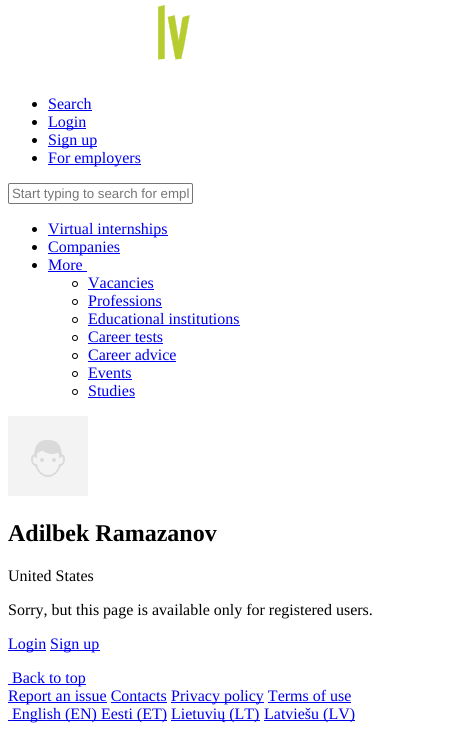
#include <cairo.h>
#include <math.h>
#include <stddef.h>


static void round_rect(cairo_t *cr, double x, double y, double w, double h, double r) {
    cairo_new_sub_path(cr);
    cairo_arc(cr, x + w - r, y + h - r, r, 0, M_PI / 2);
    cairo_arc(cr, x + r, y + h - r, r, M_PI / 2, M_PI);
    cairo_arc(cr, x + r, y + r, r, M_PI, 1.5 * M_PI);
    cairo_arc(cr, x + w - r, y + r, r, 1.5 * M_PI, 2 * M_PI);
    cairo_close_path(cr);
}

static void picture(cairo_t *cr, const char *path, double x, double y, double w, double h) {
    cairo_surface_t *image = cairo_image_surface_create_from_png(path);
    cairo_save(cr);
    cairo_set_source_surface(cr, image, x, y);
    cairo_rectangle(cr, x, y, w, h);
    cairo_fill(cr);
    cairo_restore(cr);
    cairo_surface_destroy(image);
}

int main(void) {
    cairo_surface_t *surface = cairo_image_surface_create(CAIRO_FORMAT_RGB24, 458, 733);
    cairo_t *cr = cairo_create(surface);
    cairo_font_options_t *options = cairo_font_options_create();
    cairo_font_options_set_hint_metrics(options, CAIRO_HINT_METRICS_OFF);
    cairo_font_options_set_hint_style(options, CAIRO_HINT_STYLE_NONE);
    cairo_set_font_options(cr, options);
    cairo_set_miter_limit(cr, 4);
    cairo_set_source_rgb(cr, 1, 1, 1);
    cairo_paint(cr);
    picture(cr, "img1.png", 158, 5, 32, 55);
    cairo_set_source_rgb(cr, 0, 0, 0);
    cairo_arc(cr, 34.5, 104.5, 2.5, 0, 2 * M_PI);
    cairo_fill(cr);
    cairo_select_font_face(cr, "Liberation Serif", CAIRO_FONT_SLANT_NORMAL, CAIRO_FONT_WEIGHT_NORMAL);
    cairo_set_font_size(cr, 16);
    cairo_set_source_rgb(cr, 0, 0, 0.933);
    cairo_move_to(cr, 48, 109);
    cairo_show_text(cr, "Search");
    cairo_rectangle(cr, 48, 110, 44, 1);
    cairo_fill(cr);
    cairo_set_source_rgb(cr, 0, 0, 0);
    cairo_arc(cr, 34.5, 122.5, 2.5, 0, 2 * M_PI);
    cairo_fill(cr);
    cairo_set_source_rgb(cr, 0, 0, 0.933);
    cairo_rectangle(cr, 48, 128, 38, 1);
    cairo_fill(cr);
    cairo_move_to(cr, 48, 127);
    cairo_show_text(cr, "Login");
    cairo_set_source_rgb(cr, 0, 0, 0);
    cairo_new_path(cr);
    cairo_arc(cr, 34.5, 140.5, 2.5, 0, 2 * M_PI);
    cairo_fill(cr);
    cairo_set_source_rgb(cr, 0, 0, 0.933);
    cairo_rectangle(cr, 48, 146, 49, 1);
    cairo_fill(cr);
    cairo_move_to(cr, 48, 145);
    cairo_show_text(cr, "Sign up");
    cairo_set_source_rgb(cr, 0, 0, 0);
    cairo_new_path(cr);
    cairo_arc(cr, 34.5, 158.5, 2.5, 0, 2 * M_PI);
    cairo_fill(cr);
    cairo_set_source_rgb(cr, 0, 0, 0.933);
    cairo_rectangle(cr, 48, 164, 93, 1);
    cairo_fill(cr);
    cairo_move_to(cr, 48, 163);
    cairo_show_text(cr, "For employers");
    round_rect(cr, 8.5, 183.5, 184, 20, 1.5);
    cairo_set_source_rgb(cr, 0.463, 0.463, 0.463);
    cairo_set_line_width(cr, 1);
    cairo_stroke(cr);
    cairo_select_font_face(cr, "Liberation Sans", CAIRO_FONT_SLANT_NORMAL, CAIRO_FONT_WEIGHT_NORMAL);
    cairo_set_font_size(cr, 13.3);
    cairo_set_source_rgb(cr, 0.459, 0.459, 0.459);
    cairo_move_to(cr, 12, 198);
    cairo_show_text(cr, "Start typing to search for empl");
    cairo_set_source_rgb(cr, 0, 0, 0);
    cairo_new_path(cr);
    cairo_arc(cr, 34.5, 229.5, 2.5, 0, 2 * M_PI);
    cairo_fill(cr);
    cairo_set_source_rgb(cr, 0, 0, 0.933);
    cairo_rectangle(cr, 48, 235, 120, 1);
    cairo_fill(cr);
    cairo_select_font_face(cr, "Liberation Serif", CAIRO_FONT_SLANT_NORMAL, CAIRO_FONT_WEIGHT_NORMAL);
    cairo_set_font_size(cr, 16);
    cairo_move_to(cr, 48, 234);
    cairo_show_text(cr, "Virtual internships");
    cairo_set_source_rgb(cr, 0, 0, 0);
    cairo_new_path(cr);
    cairo_arc(cr, 34.5, 247.5, 2.5, 0, 2 * M_PI);
    cairo_fill(cr);
    cairo_set_source_rgb(cr, 0, 0, 0.933);
    cairo_rectangle(cr, 48, 253, 72, 1);
    cairo_fill(cr);
    cairo_move_to(cr, 48, 252);
    cairo_show_text(cr, "Companies");
    cairo_set_source_rgb(cr, 0, 0, 0);
    cairo_new_path(cr);
    cairo_arc(cr, 34.5, 265.5, 2.5, 0, 2 * M_PI);
    cairo_fill(cr);
    cairo_set_source_rgb(cr, 0, 0, 0.933);
    cairo_move_to(cr, 48, 270);
    cairo_show_text(cr, "More");
    cairo_rectangle(cr, 48, 271, 39, 1);
    cairo_fill(cr);
    cairo_arc(cr, 75, 284, 2.5, 0, 2 * M_PI);
    cairo_set_source_rgb(cr, 0, 0, 0);
    cairo_stroke(cr);
    cairo_set_source_rgb(cr, 0, 0, 0.933);
    cairo_move_to(cr, 88, 288);
    cairo_show_text(cr, "Vacancies");
    cairo_rectangle(cr, 88, 289, 66, 1);
    cairo_fill(cr);
    cairo_arc(cr, 75, 302, 2.5, 0, 2 * M_PI);
    cairo_set_source_rgb(cr, 0, 0, 0);
    cairo_stroke(cr);
    cairo_set_source_rgb(cr, 0, 0, 0.933);
    cairo_move_to(cr, 88, 306);
    cairo_show_text(cr, "Professions");
    cairo_rectangle(cr, 88, 307, 74, 1);
    cairo_fill(cr);
    cairo_arc(cr, 75, 320, 2.5, 0, 2 * M_PI);
    cairo_set_source_rgb(cr, 0, 0, 0);
    cairo_stroke(cr);
    cairo_set_source_rgb(cr, 0, 0, 0.933);
    cairo_move_to(cr, 88, 324);
    cairo_show_text(cr, "Educational institutions");
    cairo_rectangle(cr, 88, 325, 152, 1);
    cairo_fill(cr);
    cairo_arc(cr, 75, 338, 2.5, 0, 2 * M_PI);
    cairo_set_source_rgb(cr, 0, 0, 0);
    cairo_stroke(cr);
    cairo_set_source_rgb(cr, 0, 0, 0.933);
    cairo_move_to(cr, 88, 342);
    cairo_show_text(cr, "Career tests");
    cairo_rectangle(cr, 88, 343, 75, 1);
    cairo_fill(cr);
    cairo_arc(cr, 75, 356, 2.5, 0, 2 * M_PI);
    cairo_set_source_rgb(cr, 0, 0, 0);
    cairo_stroke(cr);
    cairo_set_source_rgb(cr, 0, 0, 0.933);
    cairo_move_to(cr, 88, 360);
    cairo_show_text(cr, "Career advice");
    cairo_rectangle(cr, 88, 361, 88, 1);
    cairo_fill(cr);
    cairo_arc(cr, 75, 374, 2.5, 0, 2 * M_PI);
    cairo_set_source_rgb(cr, 0, 0, 0);
    cairo_stroke(cr);
    cairo_set_source_rgb(cr, 0, 0, 0.933);
    cairo_move_to(cr, 88, 378);
    cairo_show_text(cr, "Events");
    cairo_rectangle(cr, 88, 379, 44, 1);
    cairo_fill(cr);
    cairo_arc(cr, 75, 392, 2.5, 0, 2 * M_PI);
    cairo_set_source_rgb(cr, 0, 0, 0);
    cairo_stroke(cr);
    cairo_set_source_rgb(cr, 0, 0, 0.933);
    cairo_move_to(cr, 88, 396);
    cairo_show_text(cr, "Studies");
    cairo_rectangle(cr, 88, 397, 47, 1);
    cairo_fill(cr);
    picture(cr, "img2.png", 8, 416, 80, 80);
    cairo_select_font_face(cr, "Liberation Serif", CAIRO_FONT_SLANT_NORMAL, CAIRO_FONT_WEIGHT_BOLD);
    cairo_set_font_size(cr, 24);
    cairo_set_source_rgb(cr, 0, 0, 0);
    cairo_move_to(cr, 8, 541);
    cairo_show_text(cr, "Adilbek Ramazanov");
    cairo_select_font_face(cr, "Liberation Serif", CAIRO_FONT_SLANT_NORMAL, CAIRO_FONT_WEIGHT_NORMAL);
    cairo_set_font_size(cr, 16);
    cairo_move_to(cr, 8, 581);
    cairo_show_text(cr, "United States");
    cairo_move_to(cr, 8, 615);
    cairo_show_text(cr, "Sorry, but this page is available only for registered users.");
    cairo_set_source_rgb(cr, 0, 0, 0.933);
    cairo_rectangle(cr, 8, 650, 38, 1);
    cairo_fill(cr);
    cairo_move_to(cr, 8, 649);
    cairo_show_text(cr, "Login");
    cairo_rectangle(cr, 50, 650, 50, 1);
    cairo_fill(cr);
    cairo_move_to(cr, 50, 649);
    cairo_show_text(cr, "Sign up");
    cairo_rectangle(cr, 8, 684, 78, 1);
    cairo_fill(cr);
    cairo_move_to(cr, 12, 683);
    cairo_show_text(cr, "Back to top");
    cairo_rectangle(cr, 8, 702, 99, 1);
    cairo_fill(cr);
    cairo_move_to(cr, 8, 701);
    cairo_show_text(cr, "Report an issue Contacts");
    cairo_rectangle(cr, 171, 702, 93, 1);
    cairo_fill(cr);
    cairo_move_to(cr, 171, 701);
    cairo_show_text(cr, "Privacy policy Terms of use");
    cairo_rectangle(cr, 111, 702, 56, 1);
    cairo_fill(cr);
    cairo_rectangle(cr, 268, 702, 83, 1);
    cairo_fill(cr);
    cairo_rectangle(cr, 8, 720, 159, 1);
    cairo_fill(cr);
    cairo_move_to(cr, 12, 719);
    cairo_show_text(cr, "English (EN) Eesti (ET)");
    cairo_rectangle(cr, 171, 720, 89, 1);
    cairo_fill(cr);
    cairo_move_to(cr, 171, 719);
    cairo_show_text(cr, "Lietuvių (LT)");
    cairo_rectangle(cr, 264, 720, 91, 1);
    cairo_fill(cr);
    cairo_move_to(cr, 264, 719);
    cairo_show_text(cr, "Latviešu (LV)");
    cairo_surface_write_to_png(surface, "page.png");
    cairo_font_options_destroy(options);
    cairo_destroy(cr);
    cairo_surface_destroy(surface);
    return 0;
}
